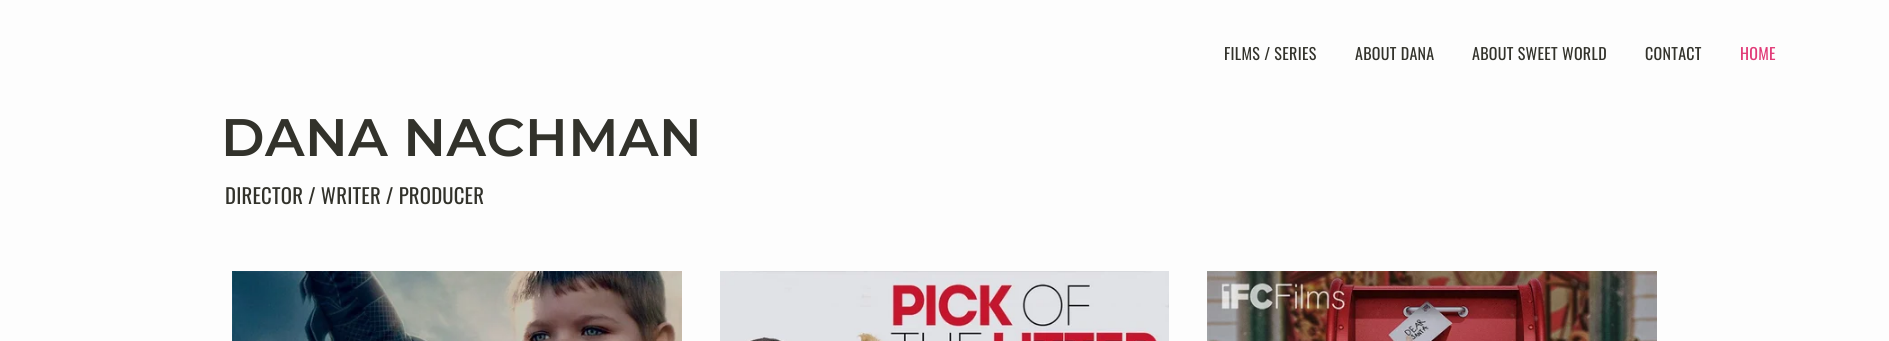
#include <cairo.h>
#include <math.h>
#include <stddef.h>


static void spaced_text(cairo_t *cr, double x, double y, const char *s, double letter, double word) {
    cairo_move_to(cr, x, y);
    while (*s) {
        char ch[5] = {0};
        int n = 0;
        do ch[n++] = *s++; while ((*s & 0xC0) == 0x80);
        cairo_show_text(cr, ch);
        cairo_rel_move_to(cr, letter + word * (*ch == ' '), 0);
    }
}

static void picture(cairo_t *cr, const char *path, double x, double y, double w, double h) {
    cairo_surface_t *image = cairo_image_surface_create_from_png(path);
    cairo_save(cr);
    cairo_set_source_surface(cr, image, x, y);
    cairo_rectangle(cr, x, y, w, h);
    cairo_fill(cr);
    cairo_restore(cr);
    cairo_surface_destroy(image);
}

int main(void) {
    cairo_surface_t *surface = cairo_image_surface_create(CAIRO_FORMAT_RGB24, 1889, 341);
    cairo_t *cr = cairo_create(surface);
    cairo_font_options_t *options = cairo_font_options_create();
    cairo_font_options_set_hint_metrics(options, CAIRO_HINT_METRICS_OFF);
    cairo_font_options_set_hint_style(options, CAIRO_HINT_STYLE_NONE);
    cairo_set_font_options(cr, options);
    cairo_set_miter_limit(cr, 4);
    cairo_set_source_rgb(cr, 0.992, 0.992, 0.992);
    cairo_paint(cr);
    cairo_select_font_face(cr, "Oswald", CAIRO_FONT_SLANT_NORMAL, CAIRO_FONT_WEIGHT_NORMAL);
    cairo_set_font_size(cr, 16);
    cairo_set_source_rgb(cr, 0.196, 0.196, 0.169);
    spaced_text(cr, 1224, 60, "FILMS / SERIES", 0.3, 0);
    spaced_text(cr, 1355, 60, "ABOUT DANA", 0.3, 0);
    spaced_text(cr, 1472, 60, "ABOUT SWEET WORLD", 0.3, 0);
    spaced_text(cr, 1645, 60, "CONTACT", 0.3, 0);
    cairo_set_source_rgb(cr, 0.882, 0.227, 0.467);
    spaced_text(cr, 1740, 60, "HOME", 0.3, 0);
    cairo_select_font_face(cr, "Montserrat SemiBold", CAIRO_FONT_SLANT_NORMAL, CAIRO_FONT_WEIGHT_NORMAL);
    cairo_set_font_size(cr, 52.75);
    cairo_set_source_rgb(cr, 0.196, 0.196, 0.169);
    spaced_text(cr, 221, 156, "DANA NACHMAN", 0.5, 0);
    cairo_select_font_face(cr, "Oswald", CAIRO_FONT_SLANT_NORMAL, CAIRO_FONT_WEIGHT_NORMAL);
    cairo_set_font_size(cr, 20.75);
    spaced_text(cr, 225, 204, "DIRECTOR / WRITER / PRODUCER", 0.2, 0);
    picture(cr, "img1.png", 232, 271, 450, 70);
    picture(cr, "img2.png", 720, 271, 449, 70);
    picture(cr, "img3.png", 1207, 271, 450, 70);
    cairo_surface_write_to_png(surface, "page.png");
    cairo_font_options_destroy(options);
    cairo_destroy(cr);
    cairo_surface_destroy(surface);
    return 0;
}
